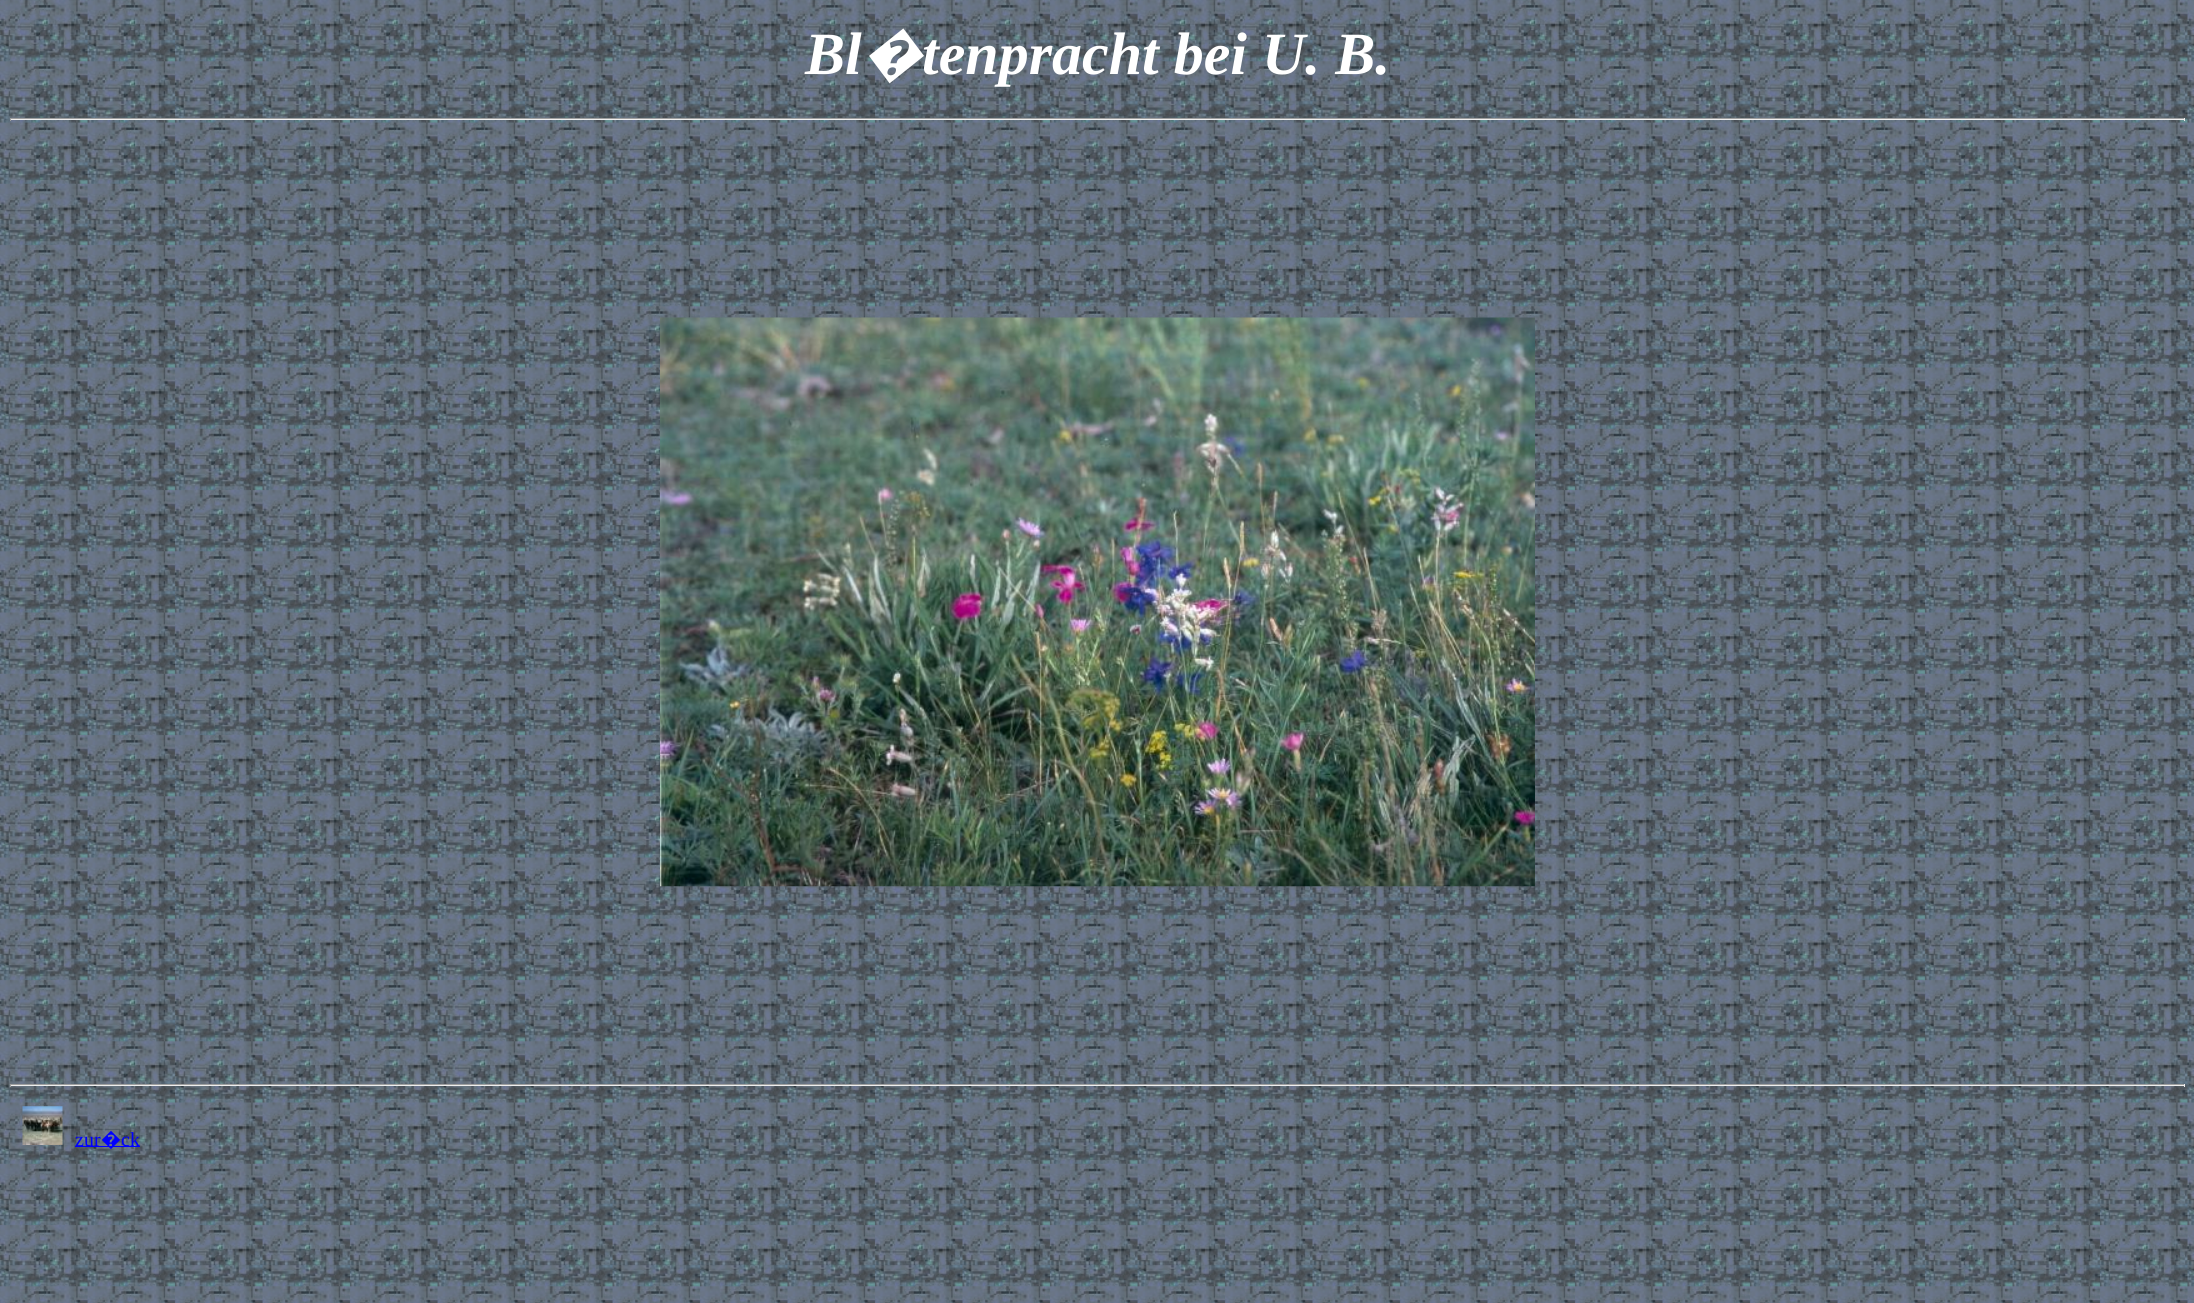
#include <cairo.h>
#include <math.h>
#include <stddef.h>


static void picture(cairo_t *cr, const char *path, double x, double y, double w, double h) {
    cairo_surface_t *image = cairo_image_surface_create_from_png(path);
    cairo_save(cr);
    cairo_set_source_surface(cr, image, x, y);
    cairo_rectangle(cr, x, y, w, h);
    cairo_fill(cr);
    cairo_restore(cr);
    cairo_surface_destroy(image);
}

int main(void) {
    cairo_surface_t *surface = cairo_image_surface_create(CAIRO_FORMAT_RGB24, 2194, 1303);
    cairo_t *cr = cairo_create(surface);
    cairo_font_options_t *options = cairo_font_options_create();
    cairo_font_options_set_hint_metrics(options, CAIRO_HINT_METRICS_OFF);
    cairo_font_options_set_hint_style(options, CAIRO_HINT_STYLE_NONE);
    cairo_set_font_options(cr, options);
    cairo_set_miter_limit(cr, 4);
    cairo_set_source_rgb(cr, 1, 1, 1);
    cairo_paint(cr);
    picture(cr, "img1.png", 0, 0, 2194, 1303);
    cairo_select_font_face(cr, "Liberation Serif", CAIRO_FONT_SLANT_ITALIC, CAIRO_FONT_WEIGHT_BOLD);
    cairo_set_font_size(cr, 60);
    cairo_set_source_rgb(cr, 1, 1, 1);
    cairo_move_to(cr, 805, 74);
    cairo_show_text(cr, "Bl");
    cairo_select_font_face(cr, "Noto Sans", CAIRO_FONT_SLANT_ITALIC, CAIRO_FONT_WEIGHT_BOLD);
    cairo_move_to(cr, 862, 74);
    cairo_show_text(cr, "�");
    cairo_select_font_face(cr, "Liberation Serif", CAIRO_FONT_SLANT_ITALIC, CAIRO_FONT_WEIGHT_BOLD);
    cairo_move_to(cr, 922, 74);
    cairo_show_text(cr, "tenpracht bei U. B.");
    cairo_set_source_rgb(cr, 0.624, 0.624, 0.624);
    cairo_rectangle(cr, 10, 118, 2175, 1);
    cairo_fill(cr);
    cairo_set_source_rgb(cr, 0.933, 0.933, 0.933);
    cairo_rectangle(cr, 2184, 118, 1, 3);
    cairo_fill(cr);
    cairo_rectangle(cr, 10, 119, 2175, 1);
    cairo_fill(cr);
    cairo_set_source_rgb(cr, 0.624, 0.624, 0.624);
    cairo_rectangle(cr, 10, 118, 1, 3);
    cairo_fill(cr);
    picture(cr, "img2.png", 660, 317, 875, 570);
    cairo_rectangle(cr, 10, 1084, 2175, 1);
    cairo_fill(cr);
    cairo_set_source_rgb(cr, 0.933, 0.933, 0.933);
    cairo_rectangle(cr, 2184, 1084, 1, 3);
    cairo_fill(cr);
    cairo_rectangle(cr, 10, 1085, 2175, 1);
    cairo_fill(cr);
    cairo_set_source_rgb(cr, 0.624, 0.624, 0.624);
    cairo_rectangle(cr, 10, 1084, 1, 3);
    cairo_fill(cr);
    picture(cr, "img3.png", 22, 1106, 41, 39);
    cairo_set_source_rgb(cr, 0, 0, 1);
    cairo_rectangle(cr, 75, 1146, 65, 1);
    cairo_fill(cr);
    cairo_select_font_face(cr, "Liberation Serif", CAIRO_FONT_SLANT_NORMAL, CAIRO_FONT_WEIGHT_NORMAL);
    cairo_set_font_size(cr, 20);
    cairo_move_to(cr, 75, 1146);
    cairo_show_text(cr, "zur");
    cairo_select_font_face(cr, "Noto Sans", CAIRO_FONT_SLANT_NORMAL, CAIRO_FONT_WEIGHT_NORMAL);
    cairo_move_to(cr, 101, 1146);
    cairo_show_text(cr, "�");
    cairo_select_font_face(cr, "Liberation Serif", CAIRO_FONT_SLANT_NORMAL, CAIRO_FONT_WEIGHT_NORMAL);
    cairo_move_to(cr, 121, 1146);
    cairo_show_text(cr, "ck");
    cairo_surface_write_to_png(surface, "page.png");
    cairo_font_options_destroy(options);
    cairo_destroy(cr);
    cairo_surface_destroy(surface);
    return 0;
}
